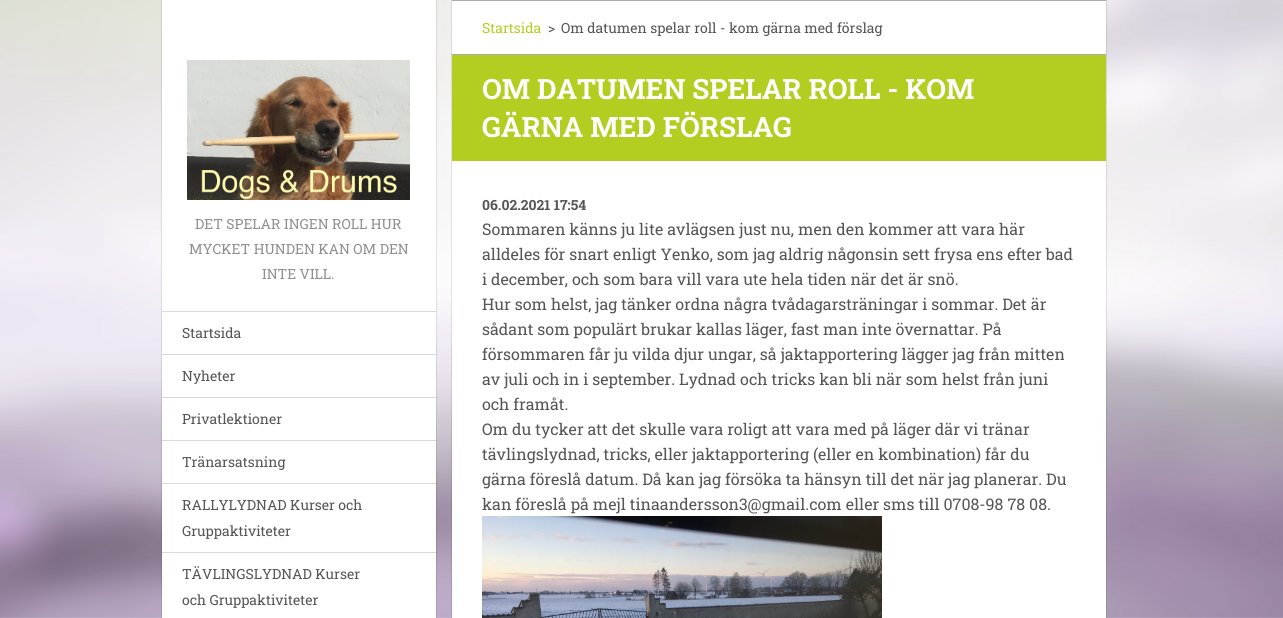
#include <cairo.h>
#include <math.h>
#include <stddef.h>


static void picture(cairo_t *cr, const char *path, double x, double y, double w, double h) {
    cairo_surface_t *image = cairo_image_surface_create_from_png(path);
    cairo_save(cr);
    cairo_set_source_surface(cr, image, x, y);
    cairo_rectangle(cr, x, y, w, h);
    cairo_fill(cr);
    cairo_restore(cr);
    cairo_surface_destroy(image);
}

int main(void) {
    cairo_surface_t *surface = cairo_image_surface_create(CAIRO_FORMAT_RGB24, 1283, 618);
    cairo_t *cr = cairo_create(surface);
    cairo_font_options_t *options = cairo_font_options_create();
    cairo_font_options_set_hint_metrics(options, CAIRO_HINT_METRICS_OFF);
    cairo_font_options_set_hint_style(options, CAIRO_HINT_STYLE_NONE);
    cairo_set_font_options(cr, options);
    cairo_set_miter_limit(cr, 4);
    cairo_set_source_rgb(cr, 1, 1, 1);
    cairo_paint(cr);
    picture(cr, "img1.png", 0, 0, 1283, 618);
    cairo_set_source_rgb(cr, 1, 1, 1);
    cairo_rectangle(cr, 162, 0, 274, 618);
    cairo_fill(cr);
    cairo_rectangle(cr, 161.5, -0.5, 275, 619);
    cairo_set_source_rgba(cr, 0, 0, 0, 0.1);
    cairo_set_line_width(cr, 1);
    cairo_stroke(cr);
    picture(cr, "img2.png", 187, 60, 223, 140);
    cairo_select_font_face(cr, "Roboto Slab", CAIRO_FONT_SLANT_NORMAL, CAIRO_FONT_WEIGHT_NORMAL);
    cairo_set_font_size(cr, 14);
    cairo_set_source_rgb(cr, 0.561, 0.561, 0.561);
    cairo_move_to(cr, 195, 229);
    cairo_show_text(cr, "DET SPELAR INGEN ROLL HUR");
    cairo_move_to(cr, 189, 254);
    cairo_show_text(cr, "MYCKET HUNDEN KAN OM DEN");
    cairo_move_to(cr, 262, 279);
    cairo_show_text(cr, "INTE VILL.");
    cairo_set_source_rgb(cr, 0.851, 0.851, 0.851);
    cairo_rectangle(cr, 162, 311, 274, 1);
    cairo_fill(cr);
    cairo_set_source_rgb(cr, 0.333, 0.333, 0.333);
    cairo_move_to(cr, 182, 338);
    cairo_show_text(cr, "Startsida");
    cairo_set_source_rgb(cr, 0.851, 0.851, 0.851);
    cairo_rectangle(cr, 162, 354, 274, 1);
    cairo_fill(cr);
    cairo_set_source_rgb(cr, 0.333, 0.333, 0.333);
    cairo_move_to(cr, 182, 381);
    cairo_show_text(cr, "Nyheter");
    cairo_set_source_rgb(cr, 0.851, 0.851, 0.851);
    cairo_rectangle(cr, 162, 397, 274, 1);
    cairo_fill(cr);
    cairo_set_source_rgb(cr, 0.333, 0.333, 0.333);
    cairo_move_to(cr, 182, 424);
    cairo_show_text(cr, "Privatlektioner");
    cairo_set_source_rgb(cr, 0.851, 0.851, 0.851);
    cairo_rectangle(cr, 162, 440, 274, 1);
    cairo_fill(cr);
    cairo_set_source_rgb(cr, 0.333, 0.333, 0.333);
    cairo_move_to(cr, 182, 467);
    cairo_show_text(cr, "Tränarsatsning");
    cairo_set_source_rgb(cr, 0.851, 0.851, 0.851);
    cairo_rectangle(cr, 162, 483, 274, 1);
    cairo_fill(cr);
    cairo_set_source_rgb(cr, 0.333, 0.333, 0.333);
    cairo_move_to(cr, 182, 510);
    cairo_show_text(cr, "RALLYLYDNAD Kurser och");
    cairo_move_to(cr, 182, 536);
    cairo_show_text(cr, "Gruppaktiviteter");
    cairo_set_source_rgb(cr, 0.851, 0.851, 0.851);
    cairo_rectangle(cr, 162, 552, 274, 1);
    cairo_fill(cr);
    cairo_set_source_rgb(cr, 0.333, 0.333, 0.333);
    cairo_move_to(cr, 182, 579);
    cairo_show_text(cr, "TÄVLINGSLYDNAD Kurser");
    cairo_move_to(cr, 182, 605);
    cairo_show_text(cr, "och Gruppaktiviteter");
    cairo_set_source_rgb(cr, 1, 1, 1);
    cairo_rectangle(cr, 452, 1, 654, 53);
    cairo_fill(cr);
    cairo_set_source_rgb(cr, 0.675, 0.675, 0.675);
    cairo_rectangle(cr, 452, 0, 654, 1);
    cairo_fill(cr);
    cairo_rectangle(cr, 451.5, -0.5, 655, 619);
    cairo_set_source_rgba(cr, 0, 0, 0, 0.1);
    cairo_stroke(cr);
    cairo_set_source_rgb(cr, 0.702, 0.808, 0.125);
    cairo_move_to(cr, 482, 33);
    cairo_show_text(cr, "Startsida");
    cairo_set_source_rgb(cr, 0.333, 0.333, 0.333);
    cairo_move_to(cr, 548, 33);
    cairo_show_text(cr, ">");
    cairo_move_to(cr, 561, 33);
    cairo_show_text(cr, "Om datumen spelar roll - kom gärna med förslag");
    cairo_set_source_rgb(cr, 0.675, 0.675, 0.675);
    cairo_rectangle(cr, 452, 54, 654, 1);
    cairo_fill(cr);
    cairo_set_source_rgb(cr, 0.702, 0.808, 0.125);
    cairo_rectangle(cr, 452, 55, 654, 106);
    cairo_fill(cr);
    cairo_select_font_face(cr, "Roboto Slab", CAIRO_FONT_SLANT_NORMAL, CAIRO_FONT_WEIGHT_BOLD);
    cairo_set_font_size(cr, 28);
    cairo_set_source_rgb(cr, 1, 1, 1);
    cairo_move_to(cr, 482, 99);
    cairo_show_text(cr, "OM DATUMEN SPELAR ROLL - KOM");
    cairo_move_to(cr, 482, 137);
    cairo_show_text(cr, "GÄRNA MED FÖRSLAG");
    cairo_rectangle(cr, 452, 161, 654, 457);
    cairo_fill(cr);
    cairo_set_font_size(cr, 14);
    cairo_set_source_rgb(cr, 0.333, 0.333, 0.333);
    cairo_move_to(cr, 482, 210);
    cairo_show_text(cr, "06.02.2021 17:54");
    cairo_select_font_face(cr, "Roboto Slab", CAIRO_FONT_SLANT_NORMAL, CAIRO_FONT_WEIGHT_NORMAL);
    cairo_set_font_size(cr, 16);
    cairo_move_to(cr, 482, 235);
    cairo_show_text(cr, "Sommaren känns ju lite avlägsen just nu, men den kommer att vara här");
    cairo_move_to(cr, 482, 260);
    cairo_show_text(cr, "alldeles för snart enligt Yenko, som jag aldrig någonsin sett frysa ens efter bad");
    cairo_move_to(cr, 482, 285);
    cairo_show_text(cr, "i december, och som bara vill vara ute hela tiden när det är snö.");
    cairo_move_to(cr, 482, 310);
    cairo_show_text(cr, "Hur som helst, jag tänker ordna några tvådagarsträningar i sommar. Det är");
    cairo_move_to(cr, 482, 335);
    cairo_show_text(cr, "sådant som populärt brukar kallas läger, fast man inte övernattar. På");
    cairo_move_to(cr, 482, 360);
    cairo_show_text(cr, "försommaren får ju vilda djur ungar, så jaktapportering lägger jag från mitten");
    cairo_move_to(cr, 482, 385);
    cairo_show_text(cr, "av juli och in i september. Lydnad och tricks kan bli när som helst från juni");
    cairo_move_to(cr, 482, 410);
    cairo_show_text(cr, "och framåt.");
    cairo_move_to(cr, 482, 435);
    cairo_show_text(cr, "Om du tycker att det skulle vara roligt att vara med på läger där vi tränar");
    cairo_move_to(cr, 482, 460);
    cairo_show_text(cr, "tävlingslydnad, tricks, eller jaktapportering (eller en kombination) får du");
    cairo_move_to(cr, 482, 485);
    cairo_show_text(cr, "gärna föreslå datum. Då kan jag försöka ta hänsyn till det när jag planerar. Du");
    cairo_move_to(cr, 482, 510);
    cairo_show_text(cr, "kan föreslå på mejl tinaandersson3@gmail.com eller sms till 0708-98 78 08.");
    picture(cr, "img3.png", 482, 516, 400, 102);
    cairo_surface_write_to_png(surface, "page.png");
    cairo_font_options_destroy(options);
    cairo_destroy(cr);
    cairo_surface_destroy(surface);
    return 0;
}
